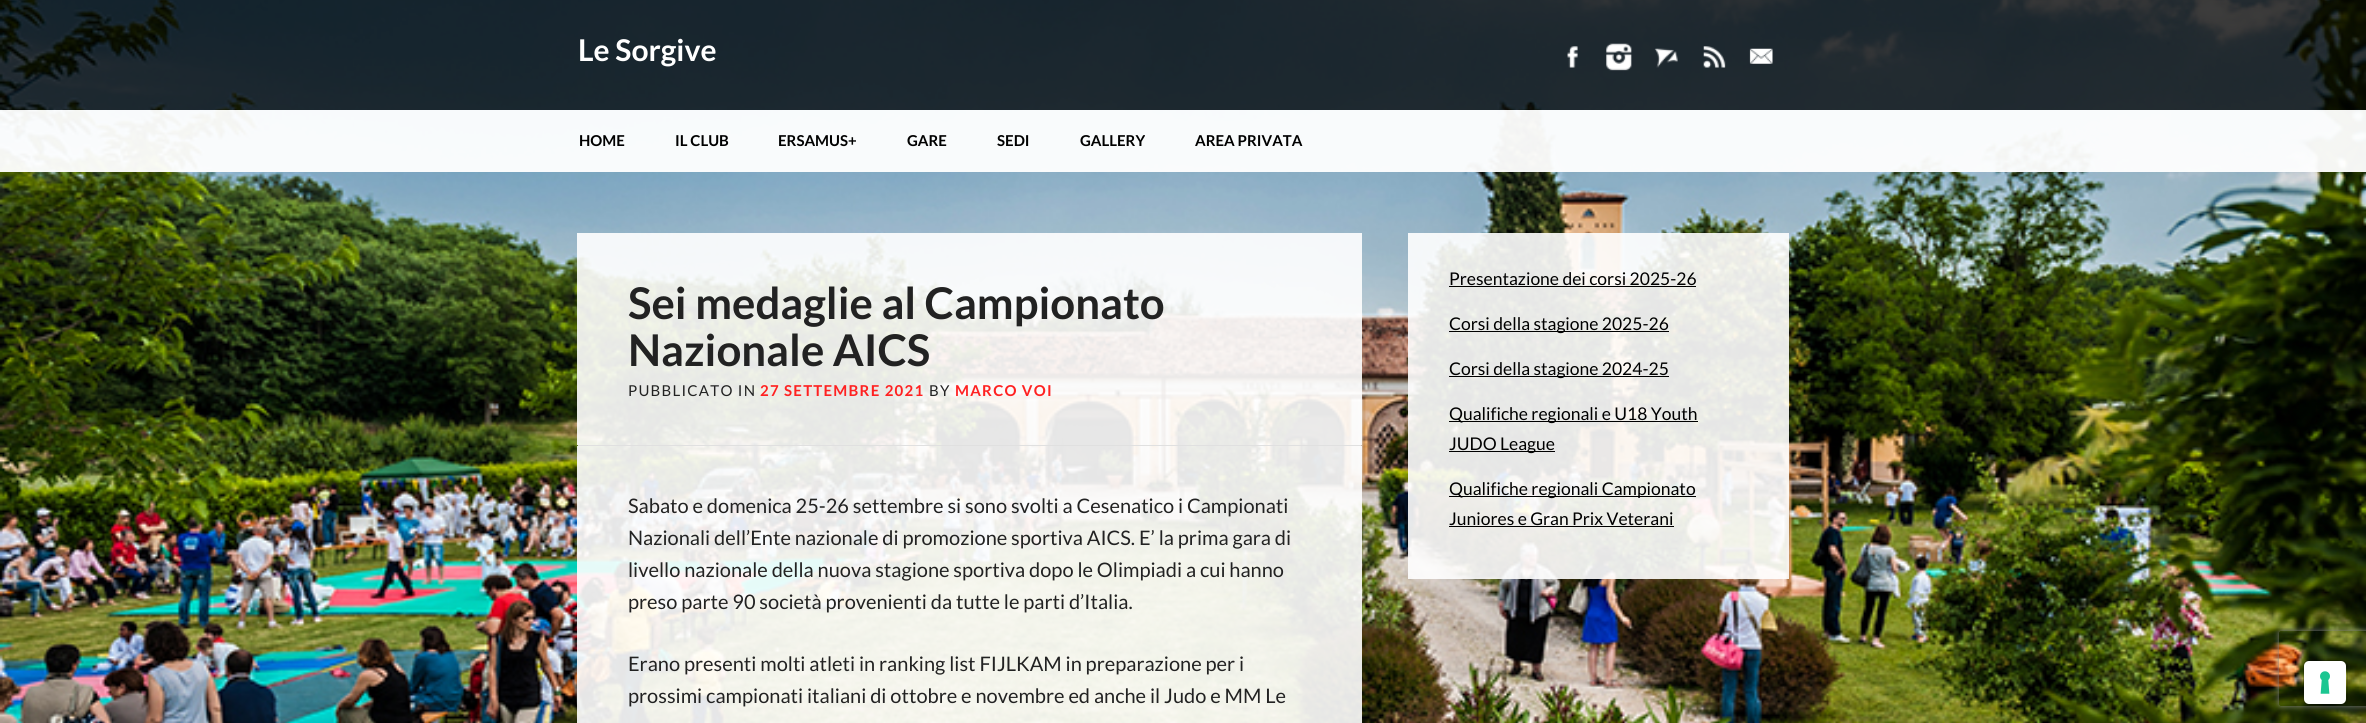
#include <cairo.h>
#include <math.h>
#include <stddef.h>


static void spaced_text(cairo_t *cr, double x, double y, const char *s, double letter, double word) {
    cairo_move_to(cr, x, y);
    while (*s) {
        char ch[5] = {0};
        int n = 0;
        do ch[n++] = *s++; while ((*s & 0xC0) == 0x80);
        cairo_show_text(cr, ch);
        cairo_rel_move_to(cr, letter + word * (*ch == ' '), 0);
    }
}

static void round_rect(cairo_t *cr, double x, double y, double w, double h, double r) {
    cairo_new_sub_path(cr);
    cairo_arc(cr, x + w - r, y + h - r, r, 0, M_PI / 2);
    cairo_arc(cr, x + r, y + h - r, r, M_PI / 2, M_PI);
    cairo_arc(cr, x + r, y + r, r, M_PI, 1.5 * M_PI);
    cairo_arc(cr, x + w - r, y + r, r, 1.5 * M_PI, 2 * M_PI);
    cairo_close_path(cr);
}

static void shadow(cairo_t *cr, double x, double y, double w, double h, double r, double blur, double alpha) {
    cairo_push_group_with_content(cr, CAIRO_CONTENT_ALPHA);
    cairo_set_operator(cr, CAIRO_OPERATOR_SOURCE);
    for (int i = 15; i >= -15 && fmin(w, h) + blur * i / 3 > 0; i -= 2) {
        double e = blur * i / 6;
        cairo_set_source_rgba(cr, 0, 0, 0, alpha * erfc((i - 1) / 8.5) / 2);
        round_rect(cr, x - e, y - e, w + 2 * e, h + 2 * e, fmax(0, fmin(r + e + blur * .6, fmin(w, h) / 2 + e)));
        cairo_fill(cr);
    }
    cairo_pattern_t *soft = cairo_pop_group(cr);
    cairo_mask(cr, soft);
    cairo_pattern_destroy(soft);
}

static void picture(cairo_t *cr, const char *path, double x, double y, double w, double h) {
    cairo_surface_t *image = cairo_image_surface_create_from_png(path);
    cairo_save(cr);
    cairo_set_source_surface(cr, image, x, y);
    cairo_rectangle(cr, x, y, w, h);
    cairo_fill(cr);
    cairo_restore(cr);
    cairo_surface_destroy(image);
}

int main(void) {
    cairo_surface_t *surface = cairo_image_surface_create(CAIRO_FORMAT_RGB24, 2366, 723);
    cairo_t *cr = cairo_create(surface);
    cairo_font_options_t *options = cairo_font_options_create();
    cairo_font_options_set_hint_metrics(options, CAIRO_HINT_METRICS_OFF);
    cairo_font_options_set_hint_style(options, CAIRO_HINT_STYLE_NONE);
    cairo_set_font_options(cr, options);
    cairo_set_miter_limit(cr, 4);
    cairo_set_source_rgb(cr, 1, 1, 1);
    cairo_paint(cr);
    picture(cr, "img1.png", 0, 0, 2366, 723);
    cairo_set_source_rgba(cr, 0, 0, 0, 0.75);
    cairo_rectangle(cr, 0, 0, 2366, 110);
    cairo_fill(cr);
    cairo_select_font_face(cr, "Lato", CAIRO_FONT_SLANT_NORMAL, CAIRO_FONT_WEIGHT_BOLD);
    cairo_set_font_size(cr, 30);
    cairo_set_source_rgb(cr, 1, 1, 1);
    cairo_move_to(cr, 578, 61);
    cairo_show_text(cr, "Le Sorgive");
    picture(cr, "img2.png", 1567, 46, 11, 22);
    picture(cr, "img3.png", 1606, 43, 26, 28);
    picture(cr, "img4.png", 1654, 48, 24, 20);
    picture(cr, "img5.png", 1703, 46, 23, 22);
    picture(cr, "img6.png", 1749, 48, 24, 16);
    cairo_set_source_rgba(cr, 1, 1, 1, 0.95);
    cairo_rectangle(cr, 0, 110, 2366, 62);
    cairo_fill(cr);
    cairo_set_font_size(cr, 15);
    cairo_set_source_rgb(cr, 0, 0, 0);
    cairo_move_to(cr, 579, 146);
    cairo_show_text(cr, "HOME");
    cairo_move_to(cr, 675, 146);
    cairo_show_text(cr, "IL CLUB");
    cairo_move_to(cr, 778, 146);
    cairo_show_text(cr, "ERSAMUS+");
    cairo_move_to(cr, 907, 146);
    cairo_show_text(cr, "GARE");
    cairo_move_to(cr, 997, 146);
    cairo_show_text(cr, "SEDI");
    cairo_move_to(cr, 1080, 146);
    cairo_show_text(cr, "GALLERY");
    cairo_move_to(cr, 1195, 146);
    cairo_show_text(cr, "AREA PRIVATA");
    cairo_set_source_rgba(cr, 1, 1, 1, 0.9);
    cairo_rectangle(cr, 577, 233, 785, 212);
    cairo_fill(cr);
    cairo_set_font_size(cr, 43.75);
    cairo_set_source_rgb(cr, 0.133, 0.133, 0.133);
    cairo_move_to(cr, 628, 319);
    cairo_show_text(cr, "Sei medaglie al Campionato");
    cairo_move_to(cr, 628, 366);
    cairo_show_text(cr, "Nazionale AICS");
    cairo_select_font_face(cr, "Lato", CAIRO_FONT_SLANT_NORMAL, CAIRO_FONT_WEIGHT_NORMAL);
    cairo_set_font_size(cr, 15);
    spaced_text(cr, 628, 396, "PUBBLICATO IN", 1.25, 0);
    cairo_select_font_face(cr, "Lato", CAIRO_FONT_SLANT_NORMAL, CAIRO_FONT_WEIGHT_BOLD);
    cairo_set_source_rgb(cr, 1, 0.129, 0.129);
    spaced_text(cr, 760, 396, "27 SETTEMBRE 2021", 1.25, 0);
    cairo_select_font_face(cr, "Lato", CAIRO_FONT_SLANT_NORMAL, CAIRO_FONT_WEIGHT_NORMAL);
    cairo_set_source_rgb(cr, 0.133, 0.133, 0.133);
    spaced_text(cr, 929, 396, "BY", 1.25, 0);
    cairo_select_font_face(cr, "Lato", CAIRO_FONT_SLANT_NORMAL, CAIRO_FONT_WEIGHT_BOLD);
    cairo_set_source_rgb(cr, 1, 0.129, 0.129);
    spaced_text(cr, 955, 396, "MARCO VOI", 1.25, 0);
    cairo_set_source_rgb(cr, 0.878, 0.878, 0.878);
    cairo_rectangle(cr, 578, 445, 783, 1);
    cairo_fill(cr);
    cairo_set_source_rgba(cr, 1, 1, 1, 0.9);
    cairo_rectangle(cr, 577, 446, 785, 277);
    cairo_fill(cr);
    cairo_select_font_face(cr, "Lato", CAIRO_FONT_SLANT_NORMAL, CAIRO_FONT_WEIGHT_NORMAL);
    cairo_set_font_size(cr, 20);
    cairo_set_source_rgb(cr, 0.133, 0.133, 0.133);
    cairo_move_to(cr, 628, 513);
    cairo_show_text(cr, "Sabato e domenica 25-26 settembre si sono svolti a Cesenatico i Campionati");
    cairo_move_to(cr, 628, 545);
    cairo_show_text(cr, "Nazionali dell’Ente nazionale di promozione sportiva AICS. E’ la prima gara di");
    cairo_move_to(cr, 628, 577);
    cairo_show_text(cr, "livello nazionale della nuova stagione sportiva dopo le Olimpiadi a cui hanno");
    cairo_move_to(cr, 628, 609);
    cairo_show_text(cr, "preso parte 90 società provenienti da tutte le parti d’Italia.");
    cairo_move_to(cr, 628, 671);
    cairo_show_text(cr, "Erano presenti molti atleti in ranking list FIJLKAM in preparazione per i");
    cairo_move_to(cr, 628, 703);
    cairo_show_text(cr, "prossimi campionati italiani di ottobre e novembre ed anche il Judo e MM Le");
    cairo_set_source_rgba(cr, 1, 1, 1, 0.9);
    cairo_rectangle(cr, 1408, 233, 381, 346);
    cairo_fill(cr);
    cairo_set_font_size(cr, 17.5);
    cairo_set_source_rgb(cr, 0, 0, 0);
    cairo_move_to(cr, 1449, 285);
    cairo_show_text(cr, "Presentazione dei corsi 2025-26");
    cairo_rectangle(cr, 1449, 286, 247, 1);
    cairo_fill(cr);
    cairo_rectangle(cr, 1449, 331, 220, 1);
    cairo_fill(cr);
    cairo_move_to(cr, 1449, 330);
    cairo_show_text(cr, "Corsi della stagione 2025-26");
    cairo_rectangle(cr, 1449, 376, 220, 1);
    cairo_fill(cr);
    cairo_move_to(cr, 1449, 375);
    cairo_show_text(cr, "Corsi della stagione 2024-25");
    cairo_rectangle(cr, 1449, 421, 249, 1);
    cairo_fill(cr);
    cairo_move_to(cr, 1449, 420);
    cairo_show_text(cr, "Qualifiche regionali e U18 Youth");
    cairo_rectangle(cr, 1449, 451, 106, 1);
    cairo_fill(cr);
    cairo_move_to(cr, 1449, 450);
    cairo_show_text(cr, "JUDO League");
    cairo_rectangle(cr, 1449, 496, 247, 1);
    cairo_fill(cr);
    cairo_move_to(cr, 1449, 495);
    cairo_show_text(cr, "Qualifiche regionali Campionato");
    cairo_move_to(cr, 1449, 525);
    cairo_show_text(cr, "Juniores e Gran Prix Veterani");
    cairo_rectangle(cr, 1449, 526, 225, 1);
    cairo_fill(cr);
    cairo_save(cr);
    cairo_set_fill_rule(cr, CAIRO_FILL_RULE_EVEN_ODD);
    cairo_new_path(cr);
    cairo_move_to(cr, 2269, 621);
    cairo_line_to(cr, 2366, 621);
    cairo_line_to(cr, 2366, 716);
    cairo_line_to(cr, 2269, 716);
    cairo_close_path(cr);
    cairo_move_to(cr, 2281.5, 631);
    cairo_line_to(cr, 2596.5, 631);
    cairo_curve_to(cr, 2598, 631, 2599, 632, 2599, 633.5);
    cairo_line_to(cr, 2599, 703.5);
    cairo_curve_to(cr, 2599, 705, 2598, 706, 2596.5, 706);
    cairo_line_to(cr, 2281.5, 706);
    cairo_curve_to(cr, 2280, 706, 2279, 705, 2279, 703.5);
    cairo_line_to(cr, 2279, 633.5);
    cairo_curve_to(cr, 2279, 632, 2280, 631, 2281.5, 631);
    cairo_close_path(cr);
    cairo_clip(cr);
    cairo_set_source_rgb(cr, 0.502, 0.502, 0.502);
    shadow(cr, 2279, 631, 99, 75, 2.5, 3, 1);
    cairo_restore(cr);
    round_rect(cr, 2303.5, 660.5, 44, 44, 5.5);
    cairo_set_source_rgba(cr, 0, 0, 0, 0.15);
    cairo_set_line_width(cr, 1);
    cairo_stroke(cr);
    cairo_set_source_rgb(cr, 1, 1, 1);
    round_rect(cr, 2304, 661, 42, 43, 5);
    cairo_fill(cr);
    picture(cr, "img7.png", 2320, 671, 10, 23);
    cairo_surface_write_to_png(surface, "page.png");
    cairo_font_options_destroy(options);
    cairo_destroy(cr);
    cairo_surface_destroy(surface);
    return 0;
}
